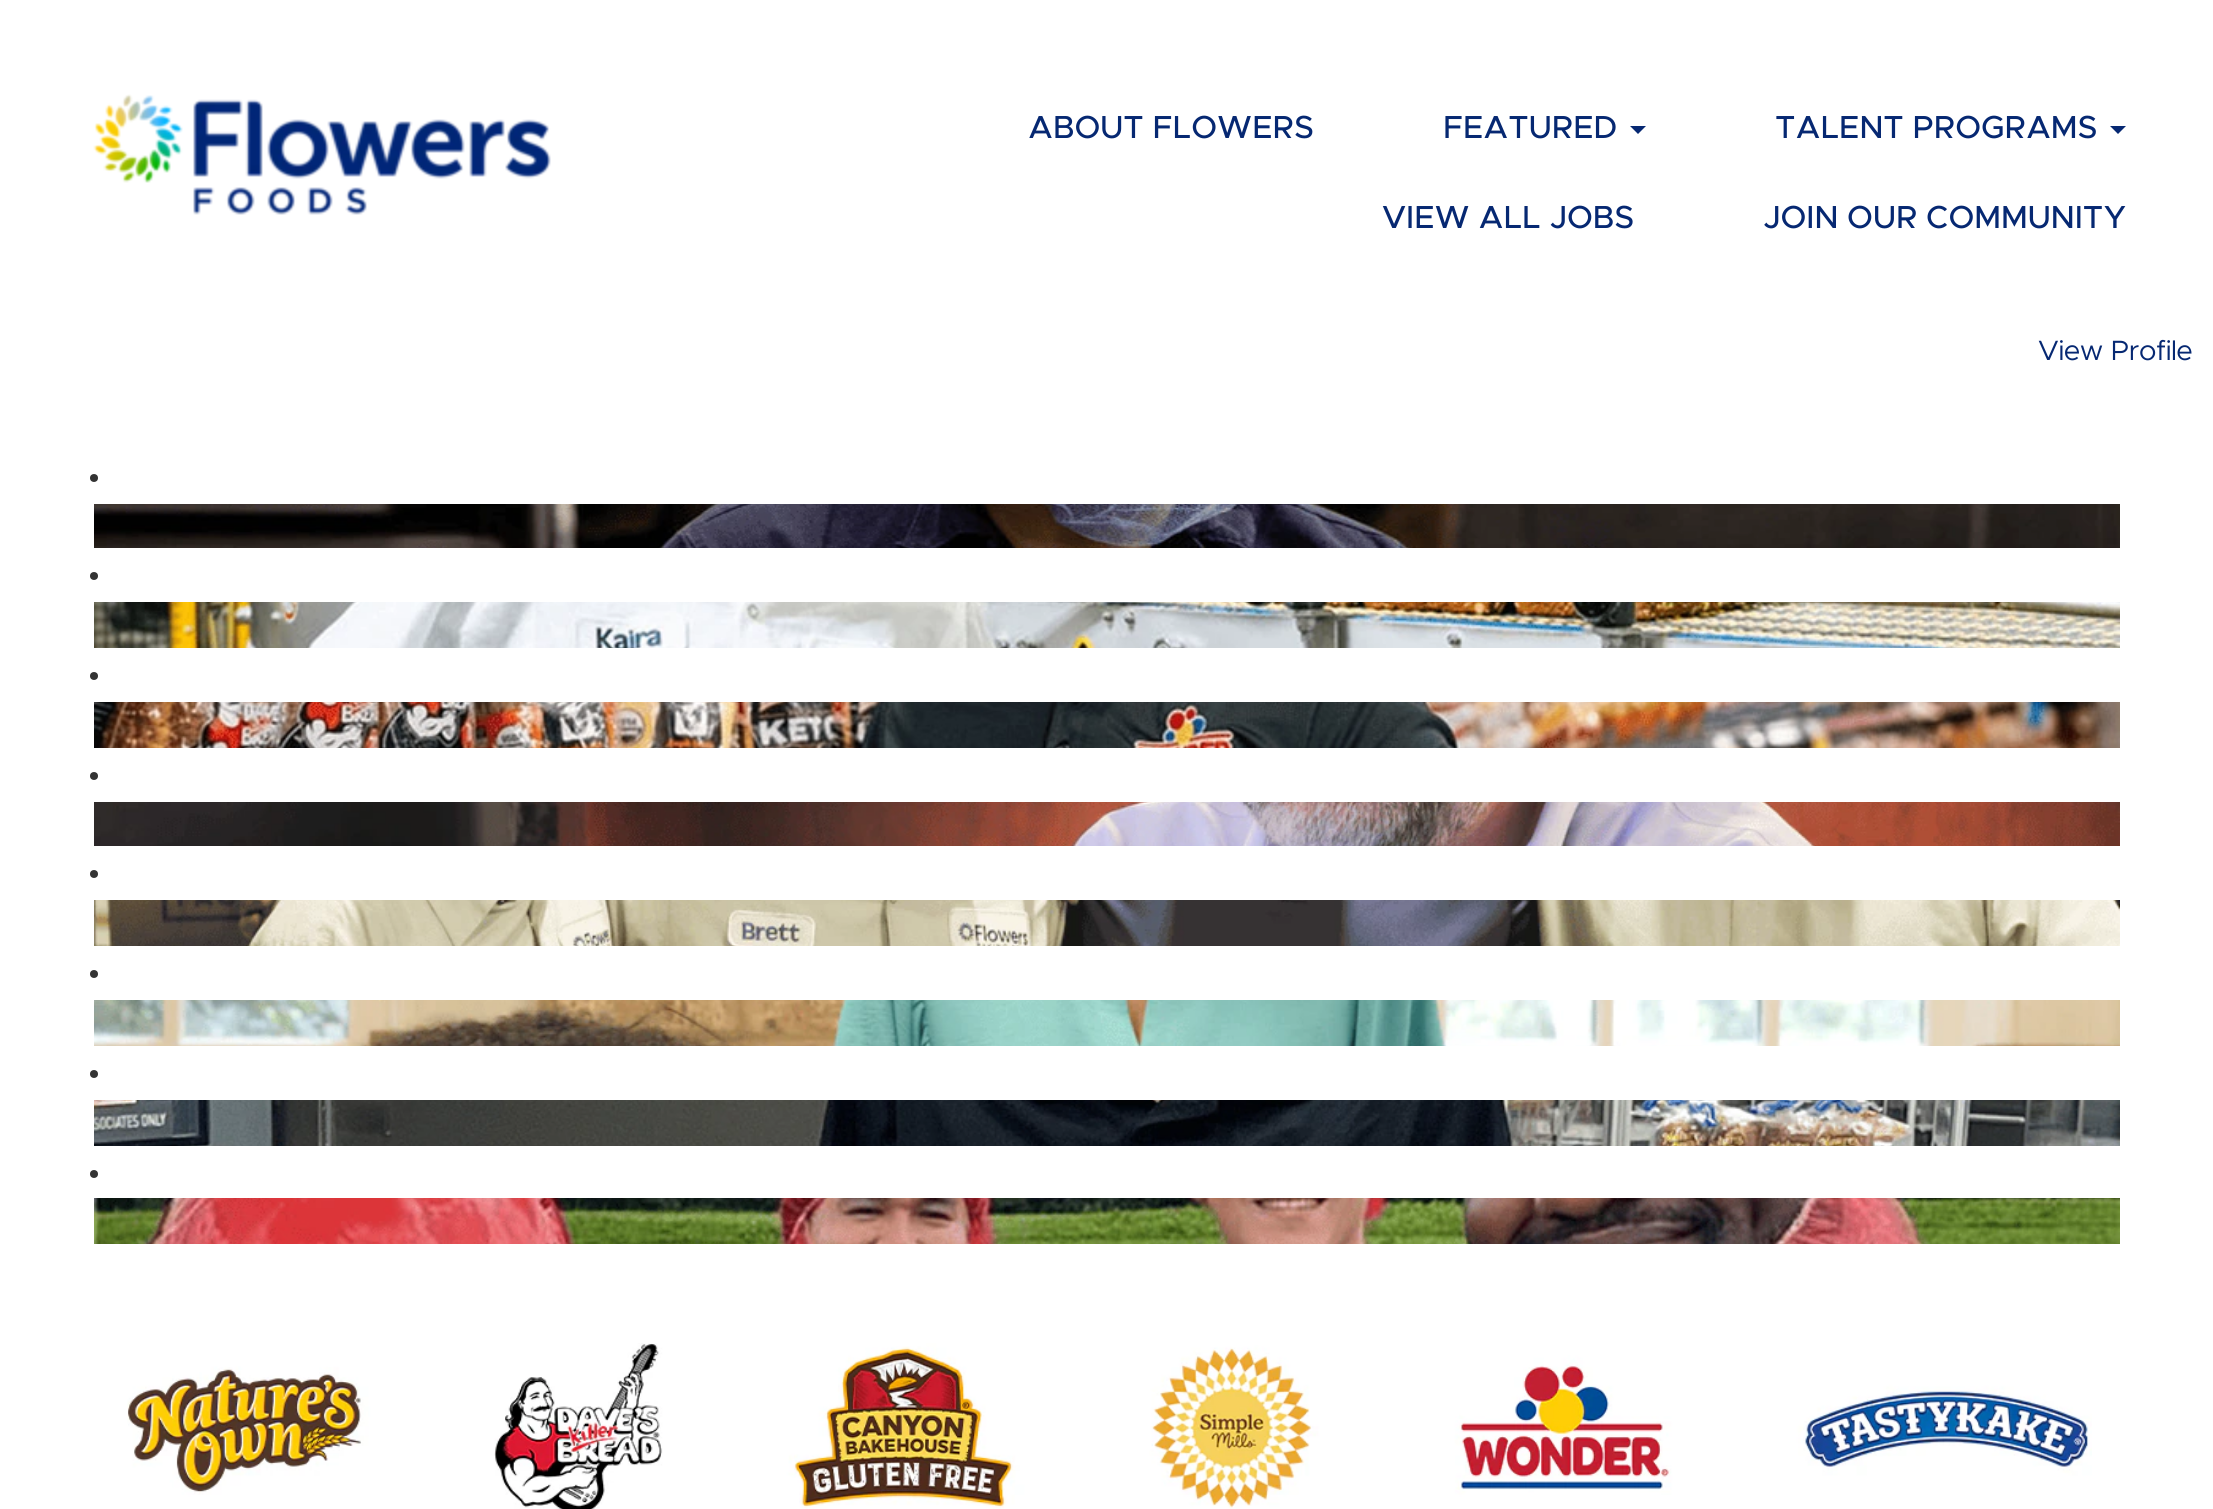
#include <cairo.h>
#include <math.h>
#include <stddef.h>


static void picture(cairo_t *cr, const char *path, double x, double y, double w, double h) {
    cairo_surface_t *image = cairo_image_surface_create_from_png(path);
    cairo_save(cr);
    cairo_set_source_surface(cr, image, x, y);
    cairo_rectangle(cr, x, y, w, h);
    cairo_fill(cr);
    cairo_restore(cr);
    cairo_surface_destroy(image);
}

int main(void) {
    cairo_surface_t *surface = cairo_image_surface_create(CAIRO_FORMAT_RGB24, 2213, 1509);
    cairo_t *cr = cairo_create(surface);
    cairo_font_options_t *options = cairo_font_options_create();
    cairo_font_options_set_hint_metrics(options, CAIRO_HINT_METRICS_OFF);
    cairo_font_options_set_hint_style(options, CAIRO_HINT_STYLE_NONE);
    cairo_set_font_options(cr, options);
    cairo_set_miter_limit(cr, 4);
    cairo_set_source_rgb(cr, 1, 1, 1);
    cairo_paint(cr);
    picture(cr, "img1.png", 93, 94, 458, 121);
    cairo_select_font_face(cr, "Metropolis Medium", CAIRO_FONT_SLANT_NORMAL, CAIRO_FONT_WEIGHT_NORMAL);
    cairo_set_font_size(cr, 32);
    cairo_set_source_rgb(cr, 0.027, 0.157, 0.447);
    cairo_move_to(cr, 1028, 138);
    cairo_show_text(cr, "ABOUT FLOWERS");
    cairo_move_to(cr, 1443, 138);
    cairo_show_text(cr, "FEATURED");
    cairo_new_path(cr);
    cairo_move_to(cr, 1630, 126);
    cairo_line_to(cr, 1646, 126);
    cairo_line_to(cr, 1638, 134);
    cairo_close_path(cr);
    cairo_fill(cr);
    cairo_move_to(cr, 1775, 138);
    cairo_show_text(cr, "TALENT PROGRAMS");
    cairo_new_path(cr);
    cairo_move_to(cr, 2110, 126);
    cairo_line_to(cr, 2126, 126);
    cairo_line_to(cr, 2118, 134);
    cairo_close_path(cr);
    cairo_fill(cr);
    cairo_move_to(cr, 1382, 228);
    cairo_show_text(cr, "VIEW ALL JOBS");
    cairo_move_to(cr, 1763, 228);
    cairo_show_text(cr, "JOIN OUR COMMUNITY");
    cairo_select_font_face(cr, "Metropolis", CAIRO_FONT_SLANT_NORMAL, CAIRO_FONT_WEIGHT_NORMAL);
    cairo_set_font_size(cr, 28);
    cairo_move_to(cr, 2038, 360);
    cairo_show_text(cr, "View Profile");
    cairo_set_source_rgb(cr, 0.2, 0.2, 0.2);
    cairo_new_path(cr);
    cairo_arc(cr, 94, 478, 4, 0, 2 * M_PI);
    cairo_fill(cr);
    picture(cr, "img2.png", 94, 504, 2026, 44);
    cairo_arc(cr, 94, 576, 4, 0, 2 * M_PI);
    cairo_fill(cr);
    picture(cr, "img3.png", 94, 602, 2026, 46);
    cairo_arc(cr, 94, 676, 4, 0, 2 * M_PI);
    cairo_fill(cr);
    picture(cr, "img4.png", 94, 702, 2026, 46);
    cairo_arc(cr, 94, 776, 4, 0, 2 * M_PI);
    cairo_fill(cr);
    picture(cr, "img5.png", 94, 802, 2026, 44);
    cairo_arc(cr, 94, 874, 4, 0, 2 * M_PI);
    cairo_fill(cr);
    picture(cr, "img6.png", 94, 900, 2026, 46);
    cairo_arc(cr, 94, 974, 4, 0, 2 * M_PI);
    cairo_fill(cr);
    picture(cr, "img7.png", 94, 1000, 2026, 46);
    cairo_arc(cr, 94, 1074, 4, 0, 2 * M_PI);
    cairo_fill(cr);
    picture(cr, "img8.png", 94, 1100, 2026, 46);
    cairo_arc(cr, 94, 1174, 4, 0, 2 * M_PI);
    cairo_fill(cr);
    picture(cr, "img9.png", 94, 1198, 2026, 46);
    picture(cr, "img10.png", 127, 1343, 1965, 166);
    cairo_surface_write_to_png(surface, "page.png");
    cairo_font_options_destroy(options);
    cairo_destroy(cr);
    cairo_surface_destroy(surface);
    return 0;
}
